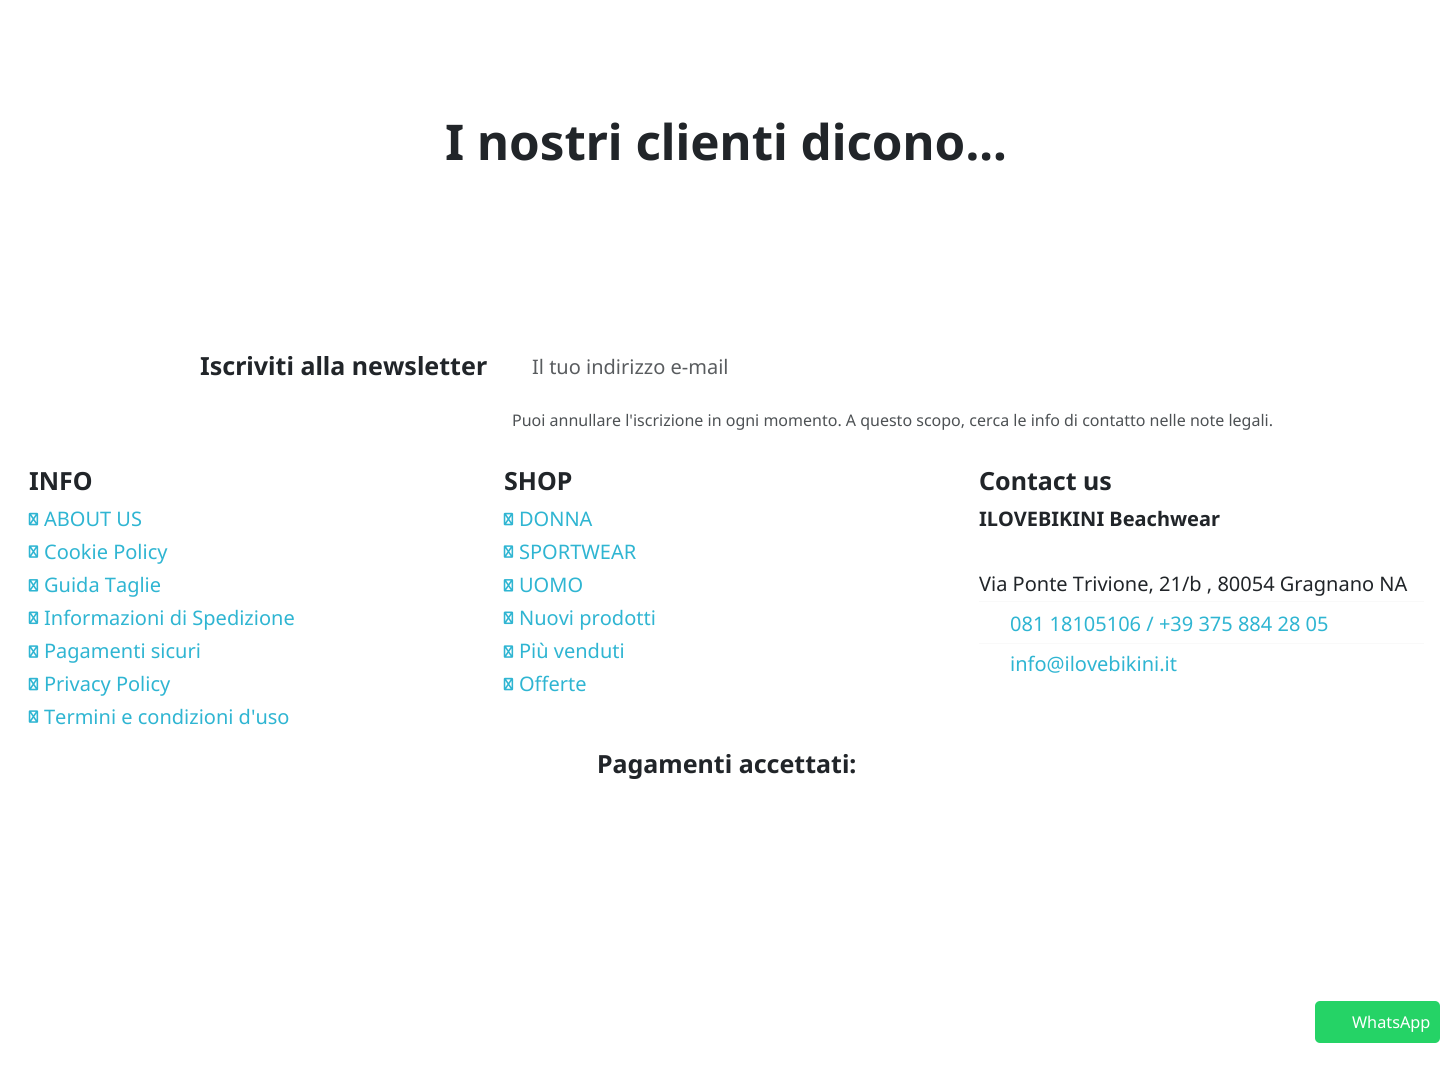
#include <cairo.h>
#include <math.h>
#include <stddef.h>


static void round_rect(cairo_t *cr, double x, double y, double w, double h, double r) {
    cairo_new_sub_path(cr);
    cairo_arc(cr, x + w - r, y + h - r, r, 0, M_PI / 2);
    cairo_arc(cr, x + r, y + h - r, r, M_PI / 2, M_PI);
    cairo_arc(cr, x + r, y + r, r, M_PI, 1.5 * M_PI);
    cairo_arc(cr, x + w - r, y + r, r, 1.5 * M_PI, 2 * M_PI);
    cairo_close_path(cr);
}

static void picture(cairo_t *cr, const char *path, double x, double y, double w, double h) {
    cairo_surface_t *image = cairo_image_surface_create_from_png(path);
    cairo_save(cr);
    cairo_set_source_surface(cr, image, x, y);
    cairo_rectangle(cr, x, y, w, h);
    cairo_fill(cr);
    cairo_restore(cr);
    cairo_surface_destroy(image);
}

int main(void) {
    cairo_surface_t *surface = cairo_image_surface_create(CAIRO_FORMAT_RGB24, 1452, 1067);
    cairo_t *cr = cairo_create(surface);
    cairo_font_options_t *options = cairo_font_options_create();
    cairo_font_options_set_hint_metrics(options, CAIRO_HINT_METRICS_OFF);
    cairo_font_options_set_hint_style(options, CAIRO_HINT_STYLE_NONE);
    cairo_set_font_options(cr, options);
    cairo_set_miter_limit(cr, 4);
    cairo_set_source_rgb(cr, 1, 1, 1);
    cairo_paint(cr);
    cairo_select_font_face(cr, "Noto Sans", CAIRO_FONT_SLANT_NORMAL, CAIRO_FONT_WEIGHT_BOLD);
    cairo_set_font_size(cr, 49.25);
    cairo_set_source_rgb(cr, 0.129, 0.145, 0.161);
    cairo_move_to(cr, 445, 160);
    cairo_show_text(cr, "I nostri clienti dicono...");
    cairo_set_font_size(cr, 25);
    cairo_move_to(cr, 200, 375);
    cairo_show_text(cr, "Iscriviti alla newsletter");
    cairo_select_font_face(cr, "Noto Sans", CAIRO_FONT_SLANT_NORMAL, CAIRO_FONT_WEIGHT_NORMAL);
    cairo_set_font_size(cr, 20);
    cairo_set_source_rgb(cr, 0.349, 0.361, 0.373);
    cairo_move_to(cr, 532, 374);
    cairo_show_text(cr, "Il tuo indirizzo e-mail");
    cairo_set_font_size(cr, 16);
    cairo_set_source_rgb(cr, 0.302, 0.318, 0.329);
    cairo_move_to(cr, 512, 426);
    cairo_show_text(cr, "Puoi annullare l'iscrizione in ogni momento. A questo scopo, cerca le info di contatto nelle note legali.");
    cairo_select_font_face(cr, "Noto Sans", CAIRO_FONT_SLANT_NORMAL, CAIRO_FONT_WEIGHT_BOLD);
    cairo_set_font_size(cr, 25);
    cairo_set_source_rgb(cr, 0.129, 0.145, 0.161);
    cairo_move_to(cr, 29, 490);
    cairo_show_text(cr, "INFO");
    picture(cr, "img1.png", 28, 512, 11, 14);
    cairo_select_font_face(cr, "Noto Sans", CAIRO_FONT_SLANT_NORMAL, CAIRO_FONT_WEIGHT_NORMAL);
    cairo_set_font_size(cr, 20);
    cairo_set_source_rgb(cr, 0.184, 0.71, 0.824);
    cairo_move_to(cr, 44, 526);
    cairo_show_text(cr, "ABOUT US");
    picture(cr, "img2.png", 28, 545, 11, 13);
    cairo_move_to(cr, 44, 559);
    cairo_show_text(cr, "Cookie Policy");
    picture(cr, "img3.png", 28, 579, 11, 13);
    cairo_move_to(cr, 44, 592);
    cairo_show_text(cr, "Guida Taglie");
    picture(cr, "img4.png", 28, 611, 11, 14);
    cairo_move_to(cr, 44, 625);
    cairo_show_text(cr, "Informazioni di Spedizione");
    picture(cr, "img2.png", 28, 645, 11, 13);
    cairo_move_to(cr, 44, 658);
    cairo_show_text(cr, "Pagamenti sicuri");
    picture(cr, "img1.png", 28, 677, 11, 14);
    cairo_move_to(cr, 44, 691);
    cairo_show_text(cr, "Privacy Policy");
    picture(cr, "img2.png", 28, 710, 11, 13);
    cairo_move_to(cr, 44, 724);
    cairo_show_text(cr, "Termini e condizioni d'uso");
    cairo_select_font_face(cr, "Noto Sans", CAIRO_FONT_SLANT_NORMAL, CAIRO_FONT_WEIGHT_BOLD);
    cairo_set_font_size(cr, 25);
    cairo_set_source_rgb(cr, 0.129, 0.145, 0.161);
    cairo_move_to(cr, 504, 490);
    cairo_show_text(cr, "SHOP");
    picture(cr, "img1.png", 503, 512, 11, 14);
    cairo_select_font_face(cr, "Noto Sans", CAIRO_FONT_SLANT_NORMAL, CAIRO_FONT_WEIGHT_NORMAL);
    cairo_set_font_size(cr, 20);
    cairo_set_source_rgb(cr, 0.184, 0.71, 0.824);
    cairo_move_to(cr, 519, 526);
    cairo_show_text(cr, "DONNA");
    picture(cr, "img2.png", 503, 545, 11, 13);
    cairo_move_to(cr, 519, 559);
    cairo_show_text(cr, "SPORTWEAR");
    picture(cr, "img3.png", 503, 579, 11, 13);
    cairo_move_to(cr, 519, 592);
    cairo_show_text(cr, "UOMO");
    picture(cr, "img4.png", 503, 611, 11, 14);
    cairo_move_to(cr, 519, 625);
    cairo_show_text(cr, "Nuovi prodotti");
    picture(cr, "img2.png", 503, 645, 11, 13);
    cairo_move_to(cr, 519, 658);
    cairo_show_text(cr, "Più venduti");
    picture(cr, "img1.png", 503, 677, 11, 14);
    cairo_move_to(cr, 519, 691);
    cairo_show_text(cr, "Offerte");
    cairo_select_font_face(cr, "Noto Sans", CAIRO_FONT_SLANT_NORMAL, CAIRO_FONT_WEIGHT_BOLD);
    cairo_set_font_size(cr, 25);
    cairo_set_source_rgb(cr, 0.129, 0.145, 0.161);
    cairo_move_to(cr, 979, 490);
    cairo_show_text(cr, "Contact us");
    cairo_set_font_size(cr, 20);
    cairo_move_to(cr, 979, 526);
    cairo_show_text(cr, "ILOVEBIKINI Beachwear");
    cairo_select_font_face(cr, "Noto Sans", CAIRO_FONT_SLANT_NORMAL, CAIRO_FONT_WEIGHT_NORMAL);
    cairo_move_to(cr, 979, 591);
    cairo_show_text(cr, "Via Ponte Trivione, 21/b , 80054 Gragnano NA");
    cairo_set_source_rgb(cr, 0.976, 0.976, 0.976);
    cairo_rectangle(cr, 979, 601, 445, 1);
    cairo_fill(cr);
    cairo_set_source_rgb(cr, 0.184, 0.71, 0.824);
    cairo_move_to(cr, 1010, 631);
    cairo_show_text(cr, "081 18105106 / +39 375 884 28 05");
    cairo_set_source_rgb(cr, 0.976, 0.976, 0.976);
    cairo_rectangle(cr, 979, 643, 445, 1);
    cairo_fill(cr);
    cairo_set_source_rgb(cr, 0.184, 0.71, 0.824);
    cairo_move_to(cr, 1010, 671);
    cairo_show_text(cr, "info@ilovebikini.it");
    cairo_select_font_face(cr, "Noto Sans", CAIRO_FONT_SLANT_NORMAL, CAIRO_FONT_WEIGHT_BOLD);
    cairo_set_font_size(cr, 25);
    cairo_set_source_rgb(cr, 0.129, 0.145, 0.161);
    cairo_move_to(cr, 597, 773);
    cairo_show_text(cr, "Pagamenti accettati:");
    cairo_set_source_rgb(cr, 0.145, 0.827, 0.4);
    round_rect(cr, 1315, 1001, 125, 42, 5);
    cairo_fill(cr);
    cairo_select_font_face(cr, "Noto Sans", CAIRO_FONT_SLANT_NORMAL, CAIRO_FONT_WEIGHT_NORMAL);
    cairo_set_font_size(cr, 16.25);
    cairo_set_source_rgb(cr, 1, 1, 1);
    cairo_move_to(cr, 1352, 1028);
    cairo_show_text(cr, "WhatsApp");
    cairo_surface_write_to_png(surface, "page.png");
    cairo_font_options_destroy(options);
    cairo_destroy(cr);
    cairo_surface_destroy(surface);
    return 0;
}
